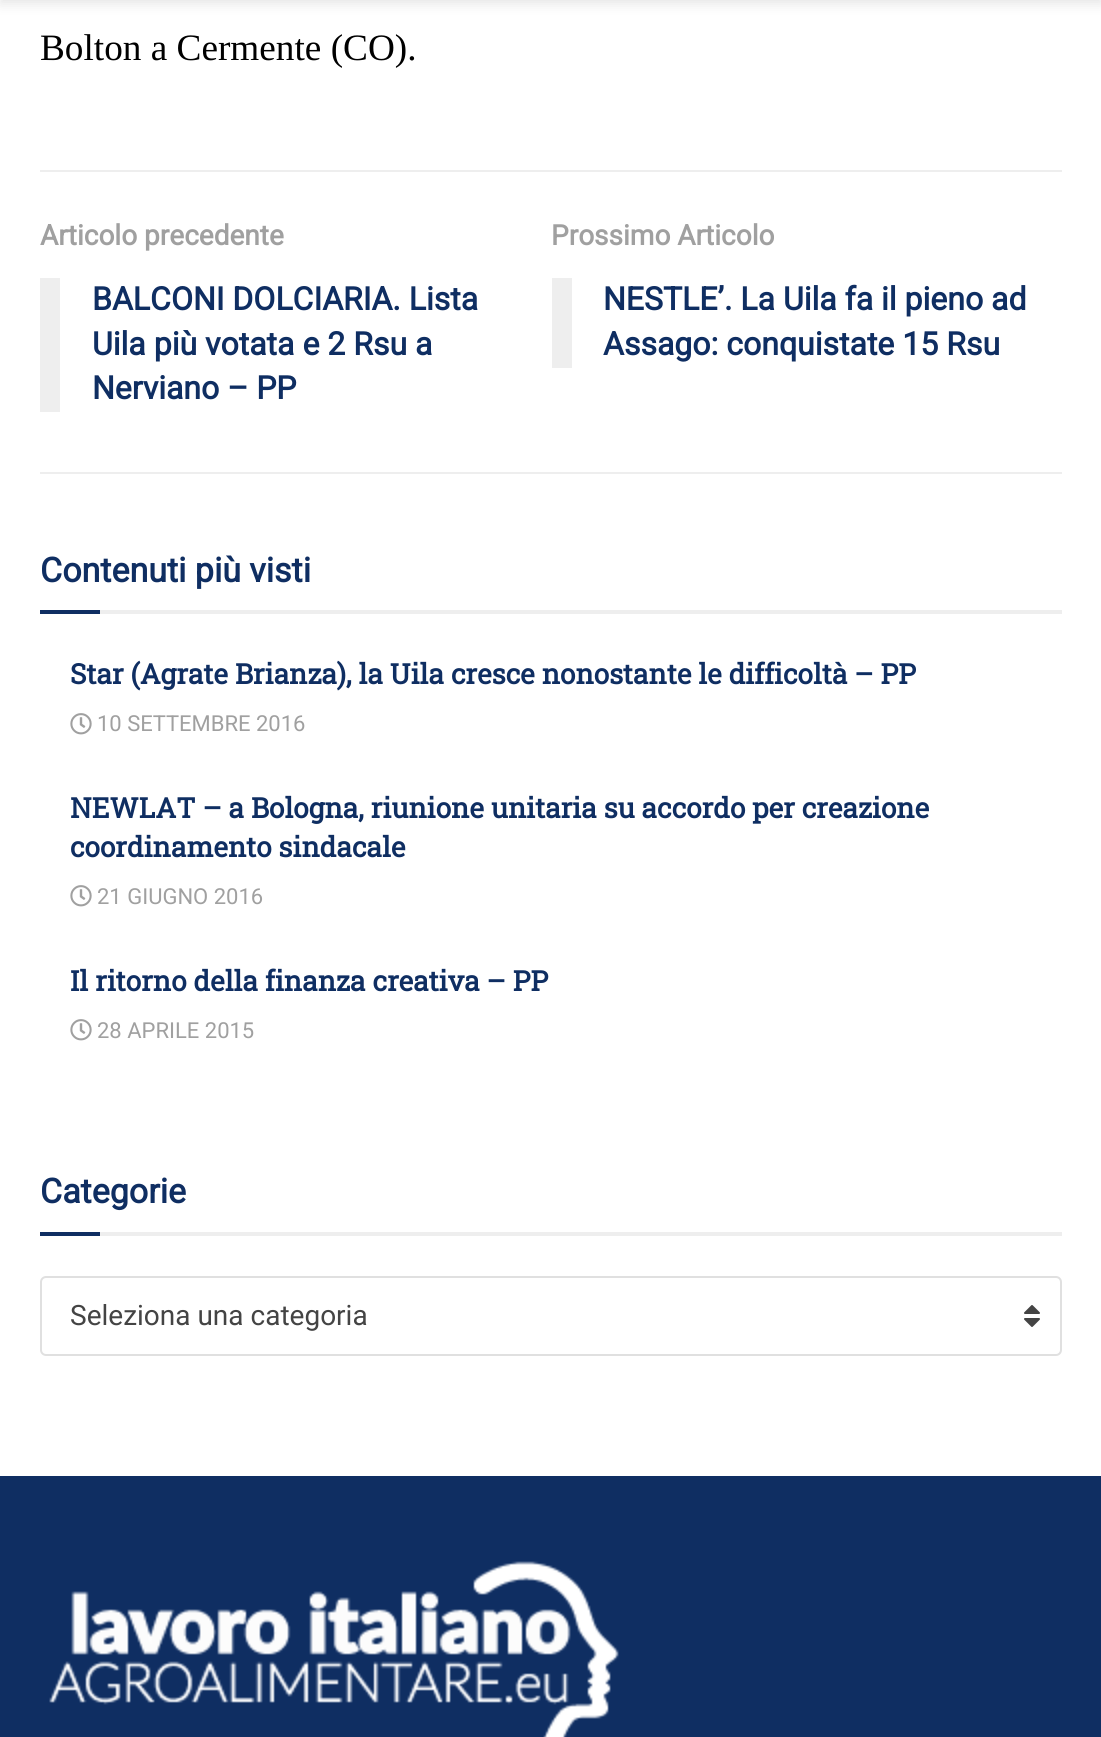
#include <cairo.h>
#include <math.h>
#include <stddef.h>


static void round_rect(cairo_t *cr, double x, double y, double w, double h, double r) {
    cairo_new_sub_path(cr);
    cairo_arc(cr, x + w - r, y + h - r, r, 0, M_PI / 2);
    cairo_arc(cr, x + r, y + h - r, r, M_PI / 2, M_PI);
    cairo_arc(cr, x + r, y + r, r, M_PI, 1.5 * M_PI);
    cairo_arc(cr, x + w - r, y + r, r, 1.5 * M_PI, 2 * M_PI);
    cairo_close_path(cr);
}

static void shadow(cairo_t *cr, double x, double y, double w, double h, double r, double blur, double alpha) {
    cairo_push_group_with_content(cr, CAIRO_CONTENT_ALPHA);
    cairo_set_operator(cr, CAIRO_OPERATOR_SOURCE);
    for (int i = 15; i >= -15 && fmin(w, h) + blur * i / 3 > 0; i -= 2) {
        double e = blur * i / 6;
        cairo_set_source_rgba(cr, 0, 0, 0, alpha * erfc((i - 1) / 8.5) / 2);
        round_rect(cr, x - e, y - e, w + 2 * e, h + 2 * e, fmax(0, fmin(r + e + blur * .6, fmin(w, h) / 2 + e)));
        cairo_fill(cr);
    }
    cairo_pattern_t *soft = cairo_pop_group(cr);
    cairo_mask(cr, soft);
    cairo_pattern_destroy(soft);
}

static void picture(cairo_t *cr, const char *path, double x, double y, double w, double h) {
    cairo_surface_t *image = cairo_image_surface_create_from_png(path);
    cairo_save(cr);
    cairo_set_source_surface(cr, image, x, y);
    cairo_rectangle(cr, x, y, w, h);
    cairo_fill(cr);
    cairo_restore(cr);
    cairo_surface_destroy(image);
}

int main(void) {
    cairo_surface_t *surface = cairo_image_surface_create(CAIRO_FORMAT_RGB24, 1101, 1737);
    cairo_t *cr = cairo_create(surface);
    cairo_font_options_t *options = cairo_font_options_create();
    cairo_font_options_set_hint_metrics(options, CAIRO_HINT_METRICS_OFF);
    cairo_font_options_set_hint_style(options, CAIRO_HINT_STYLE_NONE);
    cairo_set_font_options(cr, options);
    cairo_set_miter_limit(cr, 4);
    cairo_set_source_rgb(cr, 1, 1, 1);
    cairo_paint(cr);
    cairo_set_source_rgb(cr, 0, 0, 0);
    shadow(cr, 0, -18, 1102, 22, 0, 6, 0.1);
    cairo_select_font_face(cr, "Liberation Serif", CAIRO_FONT_SLANT_NORMAL, CAIRO_FONT_WEIGHT_NORMAL);
    cairo_set_font_size(cr, 37.25);
    cairo_set_source_rgb(cr, 0, 0, 0);
    cairo_move_to(cr, 40, 60);
    cairo_show_text(cr, "Bolton a Cermente (CO).");
    cairo_set_source_rgb(cr, 0.933, 0.933, 0.933);
    cairo_rectangle(cr, 40, 170, 1022, 2);
    cairo_fill(cr);
    cairo_rectangle(cr, 40, 472, 1022, 2);
    cairo_fill(cr);
    cairo_select_font_face(cr, "Roboto", CAIRO_FONT_SLANT_NORMAL, CAIRO_FONT_WEIGHT_BOLD);
    cairo_set_font_size(cr, 28);
    cairo_set_source_rgb(cr, 0.627, 0.627, 0.627);
    cairo_move_to(cr, 40, 245);
    cairo_show_text(cr, "Articolo precedente");
    cairo_set_source_rgb(cr, 0.933, 0.933, 0.933);
    cairo_rectangle(cr, 40, 278, 20, 134);
    cairo_fill(cr);
    cairo_set_font_size(cr, 32);
    cairo_set_source_rgb(cr, 0.059, 0.18, 0.384);
    cairo_move_to(cr, 92, 310);
    cairo_show_text(cr, "BALCONI DOLCIARIA. Lista");
    cairo_move_to(cr, 92, 355);
    cairo_show_text(cr, "Uila più votata e 2 Rsu a");
    cairo_move_to(cr, 92, 399);
    cairo_show_text(cr, "Nerviano – PP");
    cairo_set_font_size(cr, 28);
    cairo_set_source_rgb(cr, 0.627, 0.627, 0.627);
    cairo_move_to(cr, 551, 245);
    cairo_show_text(cr, "Prossimo Articolo");
    cairo_set_source_rgb(cr, 0.933, 0.933, 0.933);
    cairo_rectangle(cr, 552, 278, 20, 90);
    cairo_fill(cr);
    cairo_set_font_size(cr, 32);
    cairo_set_source_rgb(cr, 0.059, 0.18, 0.384);
    cairo_move_to(cr, 603, 310);
    cairo_show_text(cr, "NESTLE’. La Uila fa il pieno ad");
    cairo_move_to(cr, 603, 355);
    cairo_show_text(cr, "Assago: conquistate 15 Rsu");
    cairo_set_source_rgb(cr, 0.933, 0.933, 0.933);
    cairo_rectangle(cr, 100, 610, 962, 4);
    cairo_fill(cr);
    cairo_set_font_size(cr, 34);
    cairo_set_source_rgb(cr, 0.059, 0.18, 0.384);
    cairo_move_to(cr, 40, 582);
    cairo_show_text(cr, "Contenuti più visti");
    cairo_rectangle(cr, 40, 610, 60, 4);
    cairo_fill(cr);
    cairo_select_font_face(cr, "Roboto Slab", CAIRO_FONT_SLANT_NORMAL, CAIRO_FONT_WEIGHT_BOLD);
    cairo_set_font_size(cr, 28);
    cairo_move_to(cr, 70, 684);
    cairo_show_text(cr, "Star (Agrate Brianza), la Uila cresce nonostante le difficoltà – PP");
    picture(cr, "img1.png", 70, 713, 22, 22);
    cairo_select_font_face(cr, "Roboto", CAIRO_FONT_SLANT_NORMAL, CAIRO_FONT_WEIGHT_NORMAL);
    cairo_set_font_size(cr, 22);
    cairo_set_source_rgb(cr, 0.627, 0.627, 0.627);
    cairo_move_to(cr, 97, 731);
    cairo_show_text(cr, "10 SETTEMBRE 2016");
    cairo_select_font_face(cr, "Roboto Slab", CAIRO_FONT_SLANT_NORMAL, CAIRO_FONT_WEIGHT_BOLD);
    cairo_set_font_size(cr, 28);
    cairo_set_source_rgb(cr, 0.059, 0.18, 0.384);
    cairo_move_to(cr, 70, 818);
    cairo_show_text(cr, "NEWLAT – a Bologna, riunione unitaria su accordo per creazione");
    cairo_move_to(cr, 70, 857);
    cairo_show_text(cr, "coordinamento sindacale");
    picture(cr, "img1.png", 70, 885, 22, 22);
    cairo_select_font_face(cr, "Roboto", CAIRO_FONT_SLANT_NORMAL, CAIRO_FONT_WEIGHT_NORMAL);
    cairo_set_font_size(cr, 22);
    cairo_set_source_rgb(cr, 0.627, 0.627, 0.627);
    cairo_move_to(cr, 97, 904);
    cairo_show_text(cr, "21 GIUGNO 2016");
    cairo_select_font_face(cr, "Roboto Slab", CAIRO_FONT_SLANT_NORMAL, CAIRO_FONT_WEIGHT_BOLD);
    cairo_set_font_size(cr, 28);
    cairo_set_source_rgb(cr, 0.059, 0.18, 0.384);
    cairo_move_to(cr, 70, 991);
    cairo_show_text(cr, "Il ritorno della finanza creativa – PP");
    picture(cr, "img1.png", 70, 1019, 22, 22);
    cairo_select_font_face(cr, "Roboto", CAIRO_FONT_SLANT_NORMAL, CAIRO_FONT_WEIGHT_NORMAL);
    cairo_set_font_size(cr, 22);
    cairo_set_source_rgb(cr, 0.627, 0.627, 0.627);
    cairo_move_to(cr, 97, 1038);
    cairo_show_text(cr, "28 APRILE 2015");
    cairo_set_source_rgb(cr, 0.933, 0.933, 0.933);
    cairo_rectangle(cr, 100, 1232, 962, 4);
    cairo_fill(cr);
    cairo_select_font_face(cr, "Roboto", CAIRO_FONT_SLANT_NORMAL, CAIRO_FONT_WEIGHT_BOLD);
    cairo_set_font_size(cr, 34);
    cairo_set_source_rgb(cr, 0.059, 0.18, 0.384);
    cairo_move_to(cr, 40, 1203);
    cairo_show_text(cr, "Categorie");
    cairo_rectangle(cr, 40, 1232, 60, 4);
    cairo_fill(cr);
    round_rect(cr, 41, 1277, 1020, 78, 5);
    cairo_set_source_rgb(cr, 0.878, 0.878, 0.878);
    cairo_stroke(cr);
    cairo_select_font_face(cr, "Roboto", CAIRO_FONT_SLANT_NORMAL, CAIRO_FONT_WEIGHT_NORMAL);
    cairo_set_font_size(cr, 28);
    cairo_set_source_rgb(cr, 0.267, 0.267, 0.267);
    cairo_move_to(cr, 70, 1325);
    cairo_show_text(cr, "Seleziona una categoria");
    picture(cr, "img2.png", 1024, 1305, 16, 22);
    cairo_set_source_rgb(cr, 0.059, 0.18, 0.384);
    cairo_rectangle(cr, 0, 1476, 1101, 261);
    cairo_fill(cr);
    picture(cr, "img3.png", 49, 1561, 570, 176);
    cairo_surface_write_to_png(surface, "page.png");
    cairo_font_options_destroy(options);
    cairo_destroy(cr);
    cairo_surface_destroy(surface);
    return 0;
}
